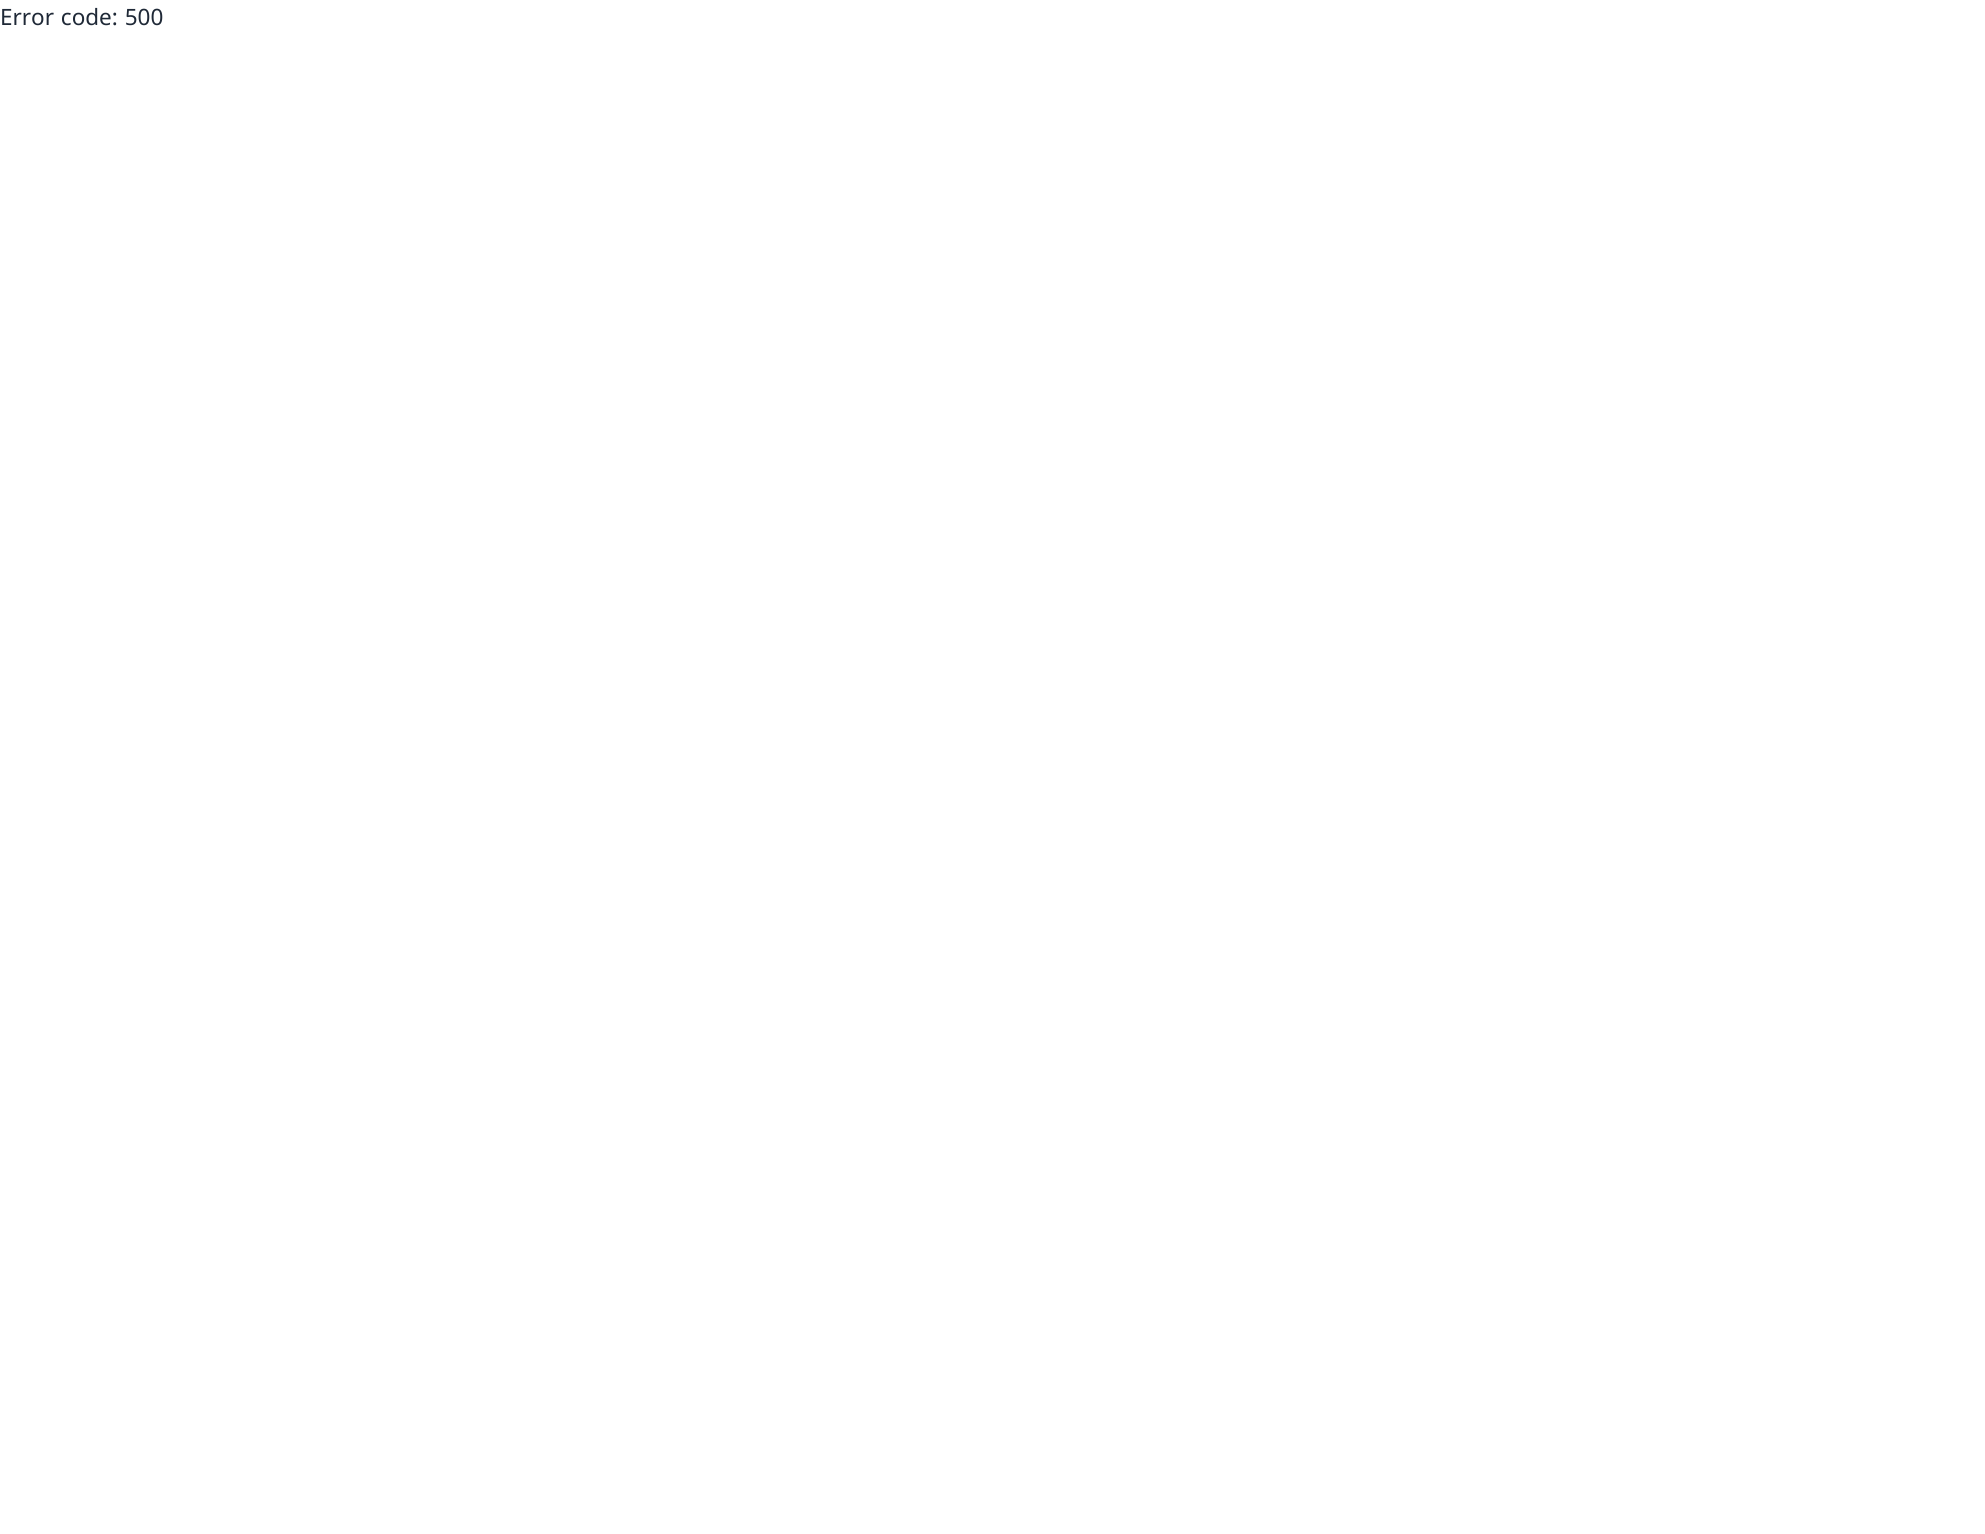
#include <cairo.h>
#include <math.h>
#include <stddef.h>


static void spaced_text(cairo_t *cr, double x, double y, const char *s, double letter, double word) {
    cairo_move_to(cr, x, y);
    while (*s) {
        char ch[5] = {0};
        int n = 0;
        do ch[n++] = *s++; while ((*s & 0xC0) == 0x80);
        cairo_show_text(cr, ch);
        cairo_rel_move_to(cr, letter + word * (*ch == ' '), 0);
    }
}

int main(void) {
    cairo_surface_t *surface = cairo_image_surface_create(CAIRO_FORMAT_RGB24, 1985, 1534);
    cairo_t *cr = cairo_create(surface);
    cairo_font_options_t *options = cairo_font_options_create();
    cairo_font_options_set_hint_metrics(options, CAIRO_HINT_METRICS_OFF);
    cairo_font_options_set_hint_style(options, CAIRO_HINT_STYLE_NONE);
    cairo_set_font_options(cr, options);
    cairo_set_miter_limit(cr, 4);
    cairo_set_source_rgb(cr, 1, 1, 1);
    cairo_paint(cr);
    cairo_select_font_face(cr, "Noto Sans", CAIRO_FONT_SLANT_NORMAL, CAIRO_FONT_WEIGHT_NORMAL);
    cairo_set_font_size(cr, 22.5);
    cairo_set_source_rgb(cr, 0.122, 0.161, 0.216);
    spaced_text(cr, 0, 25, "Error code: 500", 0, 1);
    cairo_surface_write_to_png(surface, "page.png");
    cairo_font_options_destroy(options);
    cairo_destroy(cr);
    cairo_surface_destroy(surface);
    return 0;
}
